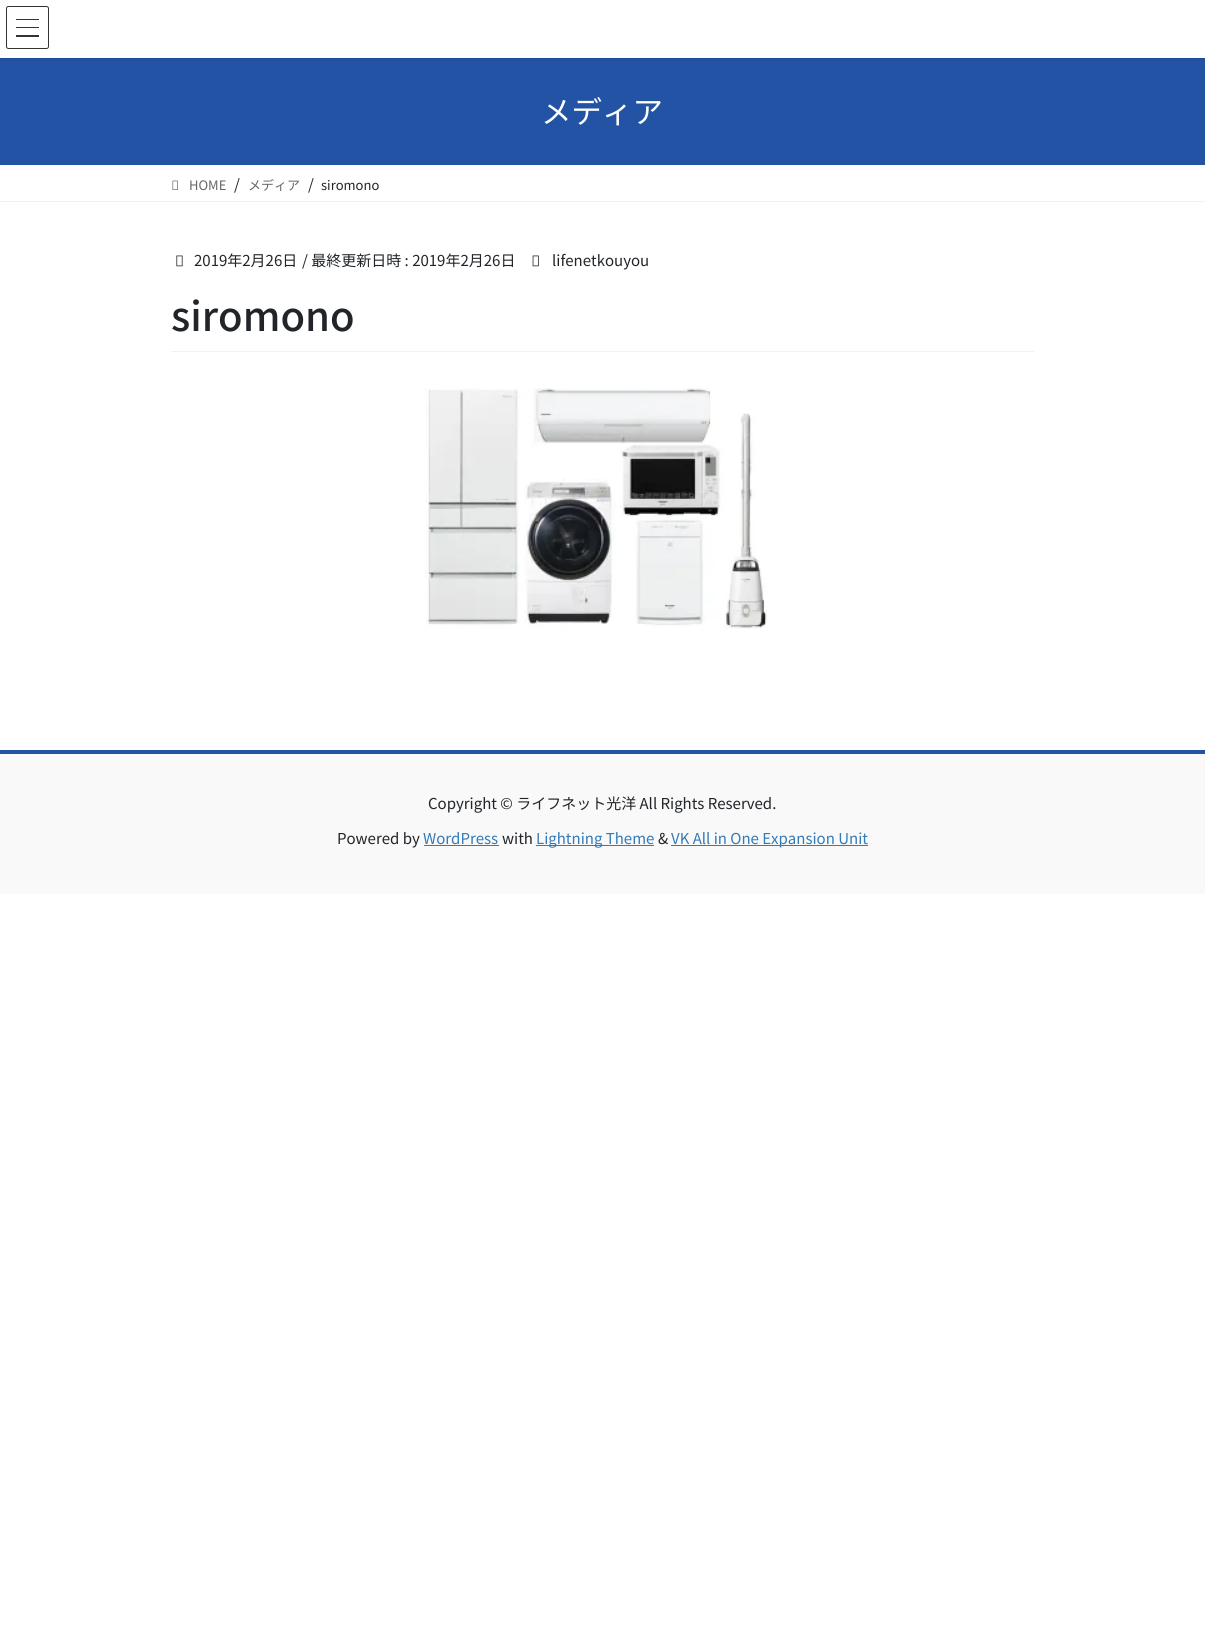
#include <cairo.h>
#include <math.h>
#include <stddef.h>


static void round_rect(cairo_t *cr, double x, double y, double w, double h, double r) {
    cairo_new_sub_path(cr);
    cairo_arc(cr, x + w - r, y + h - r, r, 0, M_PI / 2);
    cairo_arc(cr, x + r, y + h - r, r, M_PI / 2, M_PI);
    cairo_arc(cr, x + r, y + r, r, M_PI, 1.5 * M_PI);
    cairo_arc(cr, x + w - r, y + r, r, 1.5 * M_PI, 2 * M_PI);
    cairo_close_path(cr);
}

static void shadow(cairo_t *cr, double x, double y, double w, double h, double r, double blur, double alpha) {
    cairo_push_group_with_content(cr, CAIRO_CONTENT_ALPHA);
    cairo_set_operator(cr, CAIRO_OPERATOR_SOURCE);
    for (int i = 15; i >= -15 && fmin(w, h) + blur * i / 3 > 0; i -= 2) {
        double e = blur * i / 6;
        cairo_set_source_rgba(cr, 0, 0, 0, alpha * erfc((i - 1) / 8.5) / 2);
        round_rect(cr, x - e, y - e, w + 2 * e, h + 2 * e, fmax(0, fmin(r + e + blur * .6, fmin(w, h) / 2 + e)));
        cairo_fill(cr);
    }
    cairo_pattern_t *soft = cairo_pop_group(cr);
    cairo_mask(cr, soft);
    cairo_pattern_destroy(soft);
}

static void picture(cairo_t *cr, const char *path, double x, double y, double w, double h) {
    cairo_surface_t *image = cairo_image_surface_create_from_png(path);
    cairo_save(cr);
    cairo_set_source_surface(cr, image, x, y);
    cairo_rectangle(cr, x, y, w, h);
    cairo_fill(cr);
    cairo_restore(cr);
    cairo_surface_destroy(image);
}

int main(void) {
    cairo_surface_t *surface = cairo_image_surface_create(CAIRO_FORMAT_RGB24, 1205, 1644);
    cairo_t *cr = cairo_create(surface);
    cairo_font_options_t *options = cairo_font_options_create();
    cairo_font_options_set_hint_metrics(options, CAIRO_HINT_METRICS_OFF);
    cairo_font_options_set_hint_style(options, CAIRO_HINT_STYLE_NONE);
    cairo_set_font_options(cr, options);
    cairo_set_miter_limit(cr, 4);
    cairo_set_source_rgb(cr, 1, 1, 1);
    cairo_paint(cr);
    cairo_set_source_rgb(cr, 0.137, 0.325, 0.643);
    cairo_rectangle(cr, 0, 58, 1205, 107);
    cairo_fill(cr);
    cairo_set_source_rgb(cr, 0, 0, 0);
    shadow(cr, 0, 1, 1205, 58, 0, 2, 0.1);
    cairo_set_source_rgb(cr, 1, 1, 1);
    cairo_rectangle(cr, 0, 0, 1205, 58);
    cairo_fill(cr);
    cairo_set_source_rgb(cr, 0.2, 0.2, 0.2);
    cairo_rectangle(cr, 16, 19, 23, 1);
    cairo_fill(cr);
    cairo_rectangle(cr, 16, 27, 23, 1);
    cairo_fill(cr);
    cairo_rectangle(cr, 16, 35, 23, 2);
    cairo_fill(cr);
    round_rect(cr, 6.5, 6.5, 42, 42, 2);
    cairo_set_line_width(cr, 1);
    cairo_stroke(cr);
    cairo_select_font_face(cr, "Noto Sans JP", CAIRO_FONT_SLANT_NORMAL, CAIRO_FONT_WEIGHT_NORMAL);
    cairo_set_font_size(cr, 30.5);
    cairo_set_source_rgb(cr, 1, 1, 1);
    cairo_move_to(cr, 541, 123);
    cairo_show_text(cr, "メディア");
    cairo_set_source_rgb(cr, 0.949, 0.949, 0.949);
    cairo_rectangle(cr, 0, 201, 1205, 1);
    cairo_fill(cr);
    picture(cr, "img1.png", 172, 180, 6, 10);
    cairo_set_font_size(cr, 13);
    cairo_set_source_rgb(cr, 0.4, 0.4, 0.4);
    cairo_move_to(cr, 189, 190);
    cairo_show_text(cr, "HOME");
    cairo_set_font_size(cr, 15);
    cairo_set_source_rgb(cr, 0.129, 0.145, 0.161);
    cairo_move_to(cr, 234, 190);
    cairo_show_text(cr, "/");
    cairo_set_font_size(cr, 13);
    cairo_set_source_rgb(cr, 0.4, 0.4, 0.4);
    cairo_move_to(cr, 248, 190);
    cairo_show_text(cr, "メディア");
    cairo_set_font_size(cr, 15);
    cairo_set_source_rgb(cr, 0.129, 0.145, 0.161);
    cairo_move_to(cr, 308, 190);
    cairo_show_text(cr, "/");
    cairo_set_font_size(cr, 13);
    cairo_move_to(cr, 321, 190);
    cairo_show_text(cr, "siromono");
    cairo_set_source_rgb(cr, 0.949, 0.949, 0.949);
    cairo_rectangle(cr, 171, 351, 863, 1);
    cairo_fill(cr);
    picture(cr, "img2.png", 176, 255, 7, 12);
    cairo_set_font_size(cr, 15);
    cairo_set_source_rgb(cr, 0.129, 0.145, 0.161);
    cairo_move_to(cr, 194, 266);
    cairo_show_text(cr, "2019年2月26日");
    cairo_move_to(cr, 302, 266);
    cairo_show_text(cr, "/ 最終更新日時 : 2019年2月26日");
    picture(cr, "img3.png", 532, 255, 7, 12);
    cairo_move_to(cr, 552, 266);
    cairo_show_text(cr, "lifenetkouyou");
    cairo_select_font_face(cr, "Noto Sans JP Medium", CAIRO_FONT_SLANT_NORMAL, CAIRO_FONT_WEIGHT_NORMAL);
    cairo_set_font_size(cr, 40);
    cairo_move_to(cr, 171, 331);
    cairo_show_text(cr, "siromono");
    picture(cr, "img4.png", 425, 388, 342, 241);
    cairo_set_source_rgb(cr, 0.976, 0.976, 0.976);
    cairo_rectangle(cr, 0, 754, 1205, 140);
    cairo_fill(cr);
    cairo_set_source_rgb(cr, 0.137, 0.325, 0.643);
    cairo_rectangle(cr, 0, 750, 1205, 4);
    cairo_fill(cr);
    cairo_select_font_face(cr, "Noto Sans JP", CAIRO_FONT_SLANT_NORMAL, CAIRO_FONT_WEIGHT_NORMAL);
    cairo_set_font_size(cr, 15);
    cairo_set_source_rgb(cr, 0.129, 0.145, 0.161);
    cairo_move_to(cr, 428, 809);
    cairo_show_text(cr, "Copyright © ライフネット光洋 All Rights Reserved.");
    cairo_move_to(cr, 337, 844);
    cairo_show_text(cr, "Powered by");
    cairo_set_source_rgb(cr, 0.2, 0.478, 0.718);
    cairo_move_to(cr, 423, 844);
    cairo_show_text(cr, "WordPress");
    cairo_rectangle(cr, 424, 845, 75, 1);
    cairo_fill(cr);
    cairo_set_source_rgb(cr, 0.129, 0.145, 0.161);
    cairo_move_to(cr, 502, 844);
    cairo_show_text(cr, "with");
    cairo_set_source_rgb(cr, 0.2, 0.478, 0.718);
    cairo_rectangle(cr, 536, 845, 118, 1);
    cairo_fill(cr);
    cairo_move_to(cr, 536, 844);
    cairo_show_text(cr, "Lightning Theme");
    cairo_set_source_rgb(cr, 0.129, 0.145, 0.161);
    cairo_move_to(cr, 658, 844);
    cairo_show_text(cr, "&");
    cairo_set_source_rgb(cr, 0.2, 0.478, 0.718);
    cairo_rectangle(cr, 671, 845, 197, 1);
    cairo_fill(cr);
    cairo_move_to(cr, 671, 844);
    cairo_show_text(cr, "VK All in One Expansion Unit");
    cairo_surface_write_to_png(surface, "page.png");
    cairo_font_options_destroy(options);
    cairo_destroy(cr);
    cairo_surface_destroy(surface);
    return 0;
}
